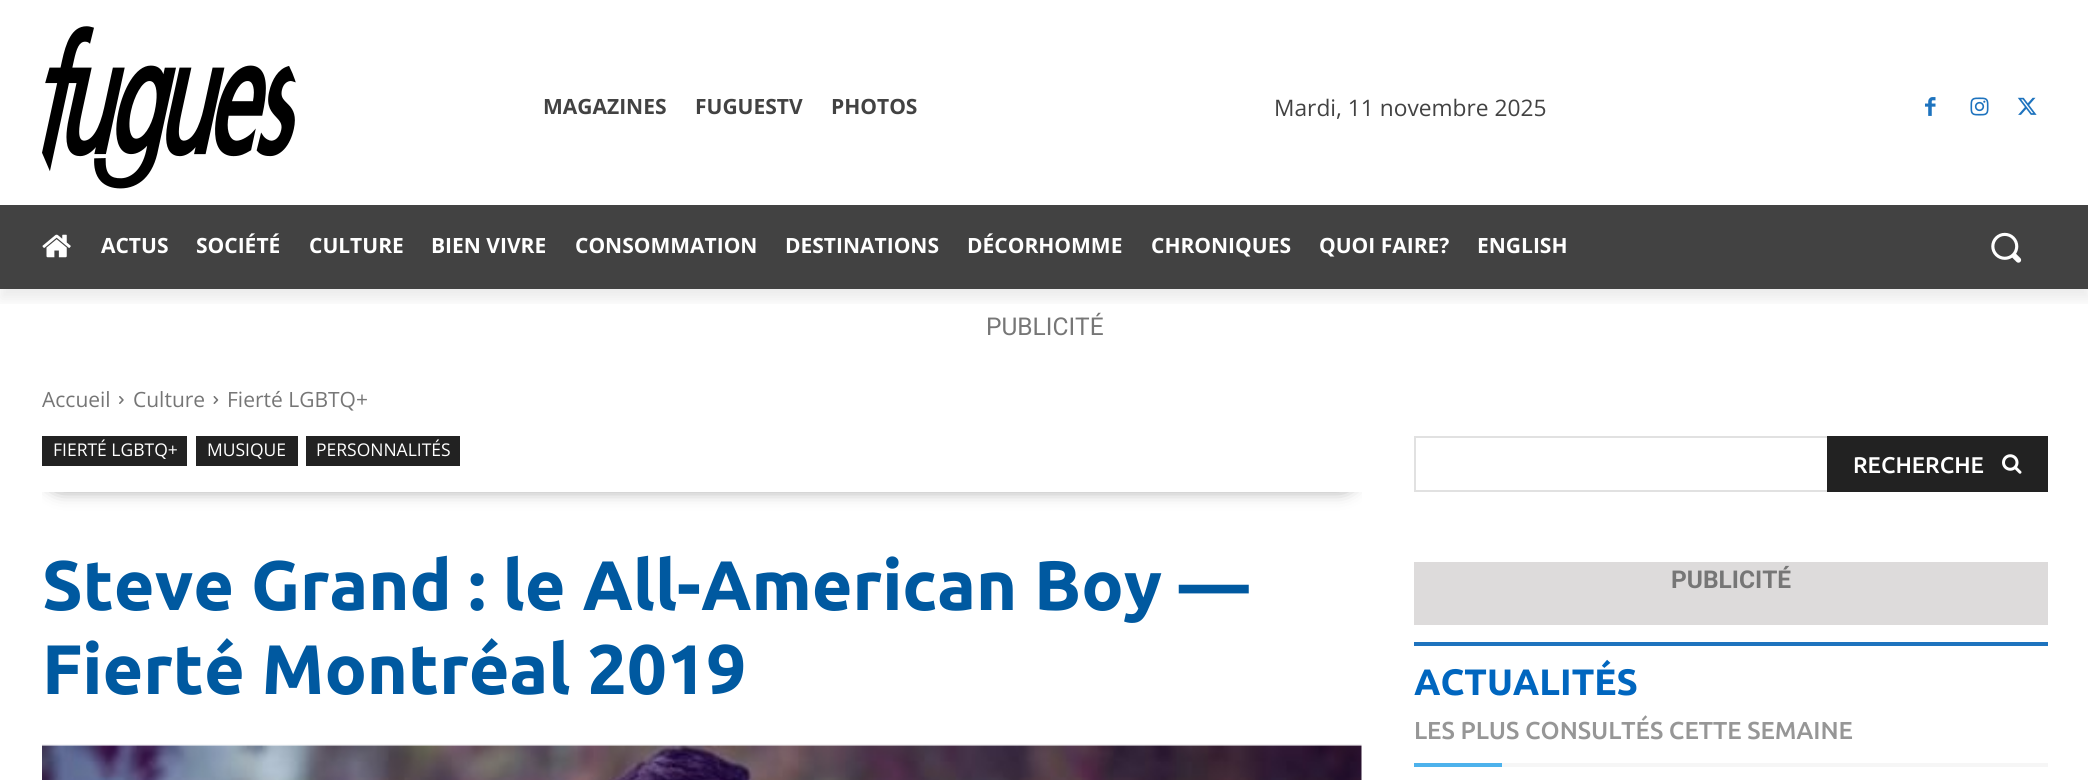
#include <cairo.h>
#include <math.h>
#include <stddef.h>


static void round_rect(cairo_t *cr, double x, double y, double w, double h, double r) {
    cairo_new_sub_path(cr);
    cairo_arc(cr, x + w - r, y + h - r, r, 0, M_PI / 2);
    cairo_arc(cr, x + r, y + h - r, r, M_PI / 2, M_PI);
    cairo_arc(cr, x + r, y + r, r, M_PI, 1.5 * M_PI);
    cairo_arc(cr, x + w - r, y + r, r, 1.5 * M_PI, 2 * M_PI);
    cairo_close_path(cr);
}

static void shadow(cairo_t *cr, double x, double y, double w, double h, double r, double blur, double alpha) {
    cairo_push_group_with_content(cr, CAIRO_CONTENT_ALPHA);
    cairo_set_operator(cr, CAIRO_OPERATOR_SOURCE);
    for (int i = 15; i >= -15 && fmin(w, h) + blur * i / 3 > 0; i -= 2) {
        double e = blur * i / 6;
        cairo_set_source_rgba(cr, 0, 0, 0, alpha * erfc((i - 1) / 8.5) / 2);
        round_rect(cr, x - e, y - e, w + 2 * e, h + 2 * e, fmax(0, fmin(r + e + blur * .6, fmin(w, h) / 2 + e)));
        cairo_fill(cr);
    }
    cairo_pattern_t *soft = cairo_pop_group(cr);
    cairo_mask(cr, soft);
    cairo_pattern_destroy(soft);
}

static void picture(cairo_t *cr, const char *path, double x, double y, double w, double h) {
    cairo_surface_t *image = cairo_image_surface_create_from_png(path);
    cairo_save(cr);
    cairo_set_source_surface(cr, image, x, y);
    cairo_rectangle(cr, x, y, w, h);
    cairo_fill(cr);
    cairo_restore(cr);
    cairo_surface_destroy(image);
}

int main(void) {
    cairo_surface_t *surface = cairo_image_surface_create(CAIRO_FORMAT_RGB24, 2088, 780);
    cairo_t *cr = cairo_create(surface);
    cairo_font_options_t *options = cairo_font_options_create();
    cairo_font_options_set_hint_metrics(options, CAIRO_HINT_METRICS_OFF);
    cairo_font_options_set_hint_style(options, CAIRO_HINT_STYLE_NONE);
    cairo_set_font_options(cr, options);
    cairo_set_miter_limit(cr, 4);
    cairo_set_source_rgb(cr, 1, 1, 1);
    cairo_paint(cr);
    picture(cr, "img1.png", 42, 26, 254, 163);
    picture(cr, "img2.png", 1925, 97, 11, 19);
    picture(cr, "img3.png", 1970, 97, 19, 19);
    picture(cr, "img4.png", 2017, 97, 20, 18);
    cairo_set_source_rgb(cr, 0.259, 0.259, 0.259);
    cairo_rectangle(cr, 0, 205, 2088, 84);
    cairo_fill(cr);
    picture(cr, "img5.png", 42, 234, 29, 24);
    cairo_save(cr);
    cairo_rectangle(cr, 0, 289, 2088, 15);
    cairo_clip(cr);
    cairo_set_source_rgb(cr, 0, 0, 0);
    shadow(cr, 0, 11, 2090, 288, 0, 7, 0.08);
    cairo_restore(cr);
    cairo_select_font_face(cr, "Open Sans", CAIRO_FONT_SLANT_NORMAL, CAIRO_FONT_WEIGHT_BOLD);
    cairo_set_font_size(cr, 21);
    cairo_move_to(cr, 543, 114);
    cairo_show_text(cr, "MAGAZINES");
    cairo_move_to(cr, 695, 114);
    cairo_show_text(cr, "FUGUESTV");
    cairo_move_to(cr, 831, 114);
    cairo_show_text(cr, "PHOTOS");
    cairo_select_font_face(cr, "Open Sans", CAIRO_FONT_SLANT_NORMAL, CAIRO_FONT_WEIGHT_NORMAL);
    cairo_set_font_size(cr, 22.75);
    cairo_move_to(cr, 1274, 116);
    cairo_show_text(cr, "Mardi, 11 novembre 2025");
    cairo_select_font_face(cr, "Open Sans", CAIRO_FONT_SLANT_NORMAL, CAIRO_FONT_WEIGHT_BOLD);
    cairo_set_font_size(cr, 21);
    cairo_set_source_rgb(cr, 1, 1, 1);
    cairo_move_to(cr, 101, 253);
    cairo_show_text(cr, "ACTUS");
    cairo_move_to(cr, 196, 253);
    cairo_show_text(cr, "SOCIÉTÉ");
    cairo_move_to(cr, 309, 253);
    cairo_show_text(cr, "CULTURE");
    cairo_move_to(cr, 431, 253);
    cairo_show_text(cr, "BIEN VIVRE");
    cairo_move_to(cr, 575, 253);
    cairo_show_text(cr, "CONSOMMATION");
    cairo_move_to(cr, 785, 253);
    cairo_show_text(cr, "DESTINATIONS");
    cairo_move_to(cr, 967, 253);
    cairo_show_text(cr, "DÉCORHOMME");
    cairo_move_to(cr, 1151, 253);
    cairo_show_text(cr, "CHRONIQUES");
    cairo_move_to(cr, 1319, 253);
    cairo_show_text(cr, "QUOI FAIRE?");
    cairo_move_to(cr, 1477, 253);
    cairo_show_text(cr, "ENGLISH");
    picture(cr, "img6.png", 1991, 232, 31, 31);
    cairo_select_font_face(cr, "Roboto", CAIRO_FONT_SLANT_NORMAL, CAIRO_FONT_WEIGHT_NORMAL);
    cairo_set_font_size(cr, 24.5);
    cairo_set_source_rgb(cr, 0.463, 0.463, 0.463);
    cairo_move_to(cr, 986, 335);
    cairo_show_text(cr, "PUBLICITÉ");
    cairo_select_font_face(cr, "Open Sans", CAIRO_FONT_SLANT_NORMAL, CAIRO_FONT_WEIGHT_NORMAL);
    cairo_set_font_size(cr, 21);
    cairo_move_to(cr, 42, 407);
    cairo_show_text(cr, "Accueil");
    picture(cr, "img7.png", 119, 396, 5, 8);
    cairo_move_to(cr, 133, 407);
    cairo_show_text(cr, "Culture");
    picture(cr, "img8.png", 213, 396, 6, 8);
    cairo_move_to(cr, 227, 407);
    cairo_show_text(cr, "Fierté LGBTQ+");
    cairo_set_source_rgb(cr, 0.133, 0.133, 0.133);
    cairo_rectangle(cr, 42, 436, 145, 30);
    cairo_fill(cr);
    cairo_rectangle(cr, 196, 436, 102, 30);
    cairo_fill(cr);
    cairo_rectangle(cr, 306, 436, 154, 30);
    cairo_fill(cr);
    cairo_save(cr);
    cairo_rectangle(cr, 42, 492, 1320, 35);
    cairo_clip(cr);
    cairo_set_source_rgb(cr, 0.486, 0.486, 0.486);
    shadow(cr, 47, 448, 1309, 40, 20, 9, 1);
    cairo_restore(cr);
    cairo_set_font_size(cr, 17.5);
    cairo_set_source_rgb(cr, 1, 1, 1);
    cairo_move_to(cr, 53, 456);
    cairo_show_text(cr, "FIERTÉ LGBTQ+");
    cairo_move_to(cr, 207, 456);
    cairo_show_text(cr, "MUSIQUE");
    cairo_move_to(cr, 316, 456);
    cairo_show_text(cr, "PERSONNALITÉS");
    cairo_select_font_face(cr, "Ubuntu", CAIRO_FONT_SLANT_NORMAL, CAIRO_FONT_WEIGHT_BOLD);
    cairo_set_font_size(cr, 70);
    cairo_set_source_rgb(cr, 0, 0.349, 0.627);
    cairo_move_to(cr, 42, 610);
    cairo_show_text(cr, "Steve Grand : le All-American Boy —");
    cairo_move_to(cr, 42, 694);
    cairo_show_text(cr, "Fierté Montréal 2019");
    picture(cr, "img9.png", 42, 744, 1320, 36);
    cairo_rectangle(cr, 1415, 437, 632, 54);
    cairo_set_source_rgb(cr, 0.882, 0.882, 0.882);
    cairo_stroke(cr);
    cairo_set_source_rgb(cr, 0.133, 0.133, 0.133);
    cairo_rectangle(cr, 1827, 436, 221, 56);
    cairo_fill(cr);
    cairo_select_font_face(cr, "Ubuntu Medium", CAIRO_FONT_SLANT_NORMAL, CAIRO_FONT_WEIGHT_NORMAL);
    cairo_set_font_size(cr, 22.75);
    cairo_set_source_rgb(cr, 1, 1, 1);
    cairo_move_to(cr, 1853, 473);
    cairo_show_text(cr, "RECHERCHE");
    picture(cr, "img10.png", 2002, 454, 20, 20);
    cairo_set_source_rgb(cr, 0.867, 0.859, 0.859);
    cairo_rectangle(cr, 1414, 562, 634, 63);
    cairo_fill(cr);
    cairo_select_font_face(cr, "Roboto", CAIRO_FONT_SLANT_NORMAL, CAIRO_FONT_WEIGHT_BOLD);
    cairo_set_font_size(cr, 24.5);
    cairo_set_source_rgb(cr, 0.463, 0.463, 0.463);
    cairo_move_to(cr, 1671, 588);
    cairo_show_text(cr, "PUBLICITÉ");
    cairo_set_source_rgb(cr, 0.118, 0.451, 0.745);
    cairo_rectangle(cr, 1414, 642, 634, 4);
    cairo_fill(cr);
    cairo_select_font_face(cr, "Ubuntu", CAIRO_FONT_SLANT_NORMAL, CAIRO_FONT_WEIGHT_BOLD);
    cairo_set_font_size(cr, 36.75);
    cairo_set_source_rgb(cr, 0, 0.4, 0.749);
    cairo_move_to(cr, 1414, 695);
    cairo_show_text(cr, "ACTUALITÉS");
    cairo_select_font_face(cr, "Ubuntu Medium", CAIRO_FONT_SLANT_NORMAL, CAIRO_FONT_WEIGHT_NORMAL);
    cairo_set_font_size(cr, 24.5);
    cairo_set_source_rgb(cr, 0.588, 0.588, 0.588);
    cairo_move_to(cr, 1414, 739);
    cairo_show_text(cr, "LES PLUS CONSULTÉS CETTE SEMAINE");
    cairo_set_source_rgb(cr, 0.302, 0.698, 0.925);
    cairo_rectangle(cr, 1414, 763, 88, 4);
    cairo_fill(cr);
    cairo_set_source_rgb(cr, 0.961, 0.961, 0.961);
    cairo_rectangle(cr, 1502, 763, 546, 4);
    cairo_fill(cr);
    cairo_surface_write_to_png(surface, "page.png");
    cairo_font_options_destroy(options);
    cairo_destroy(cr);
    cairo_surface_destroy(surface);
    return 0;
}
